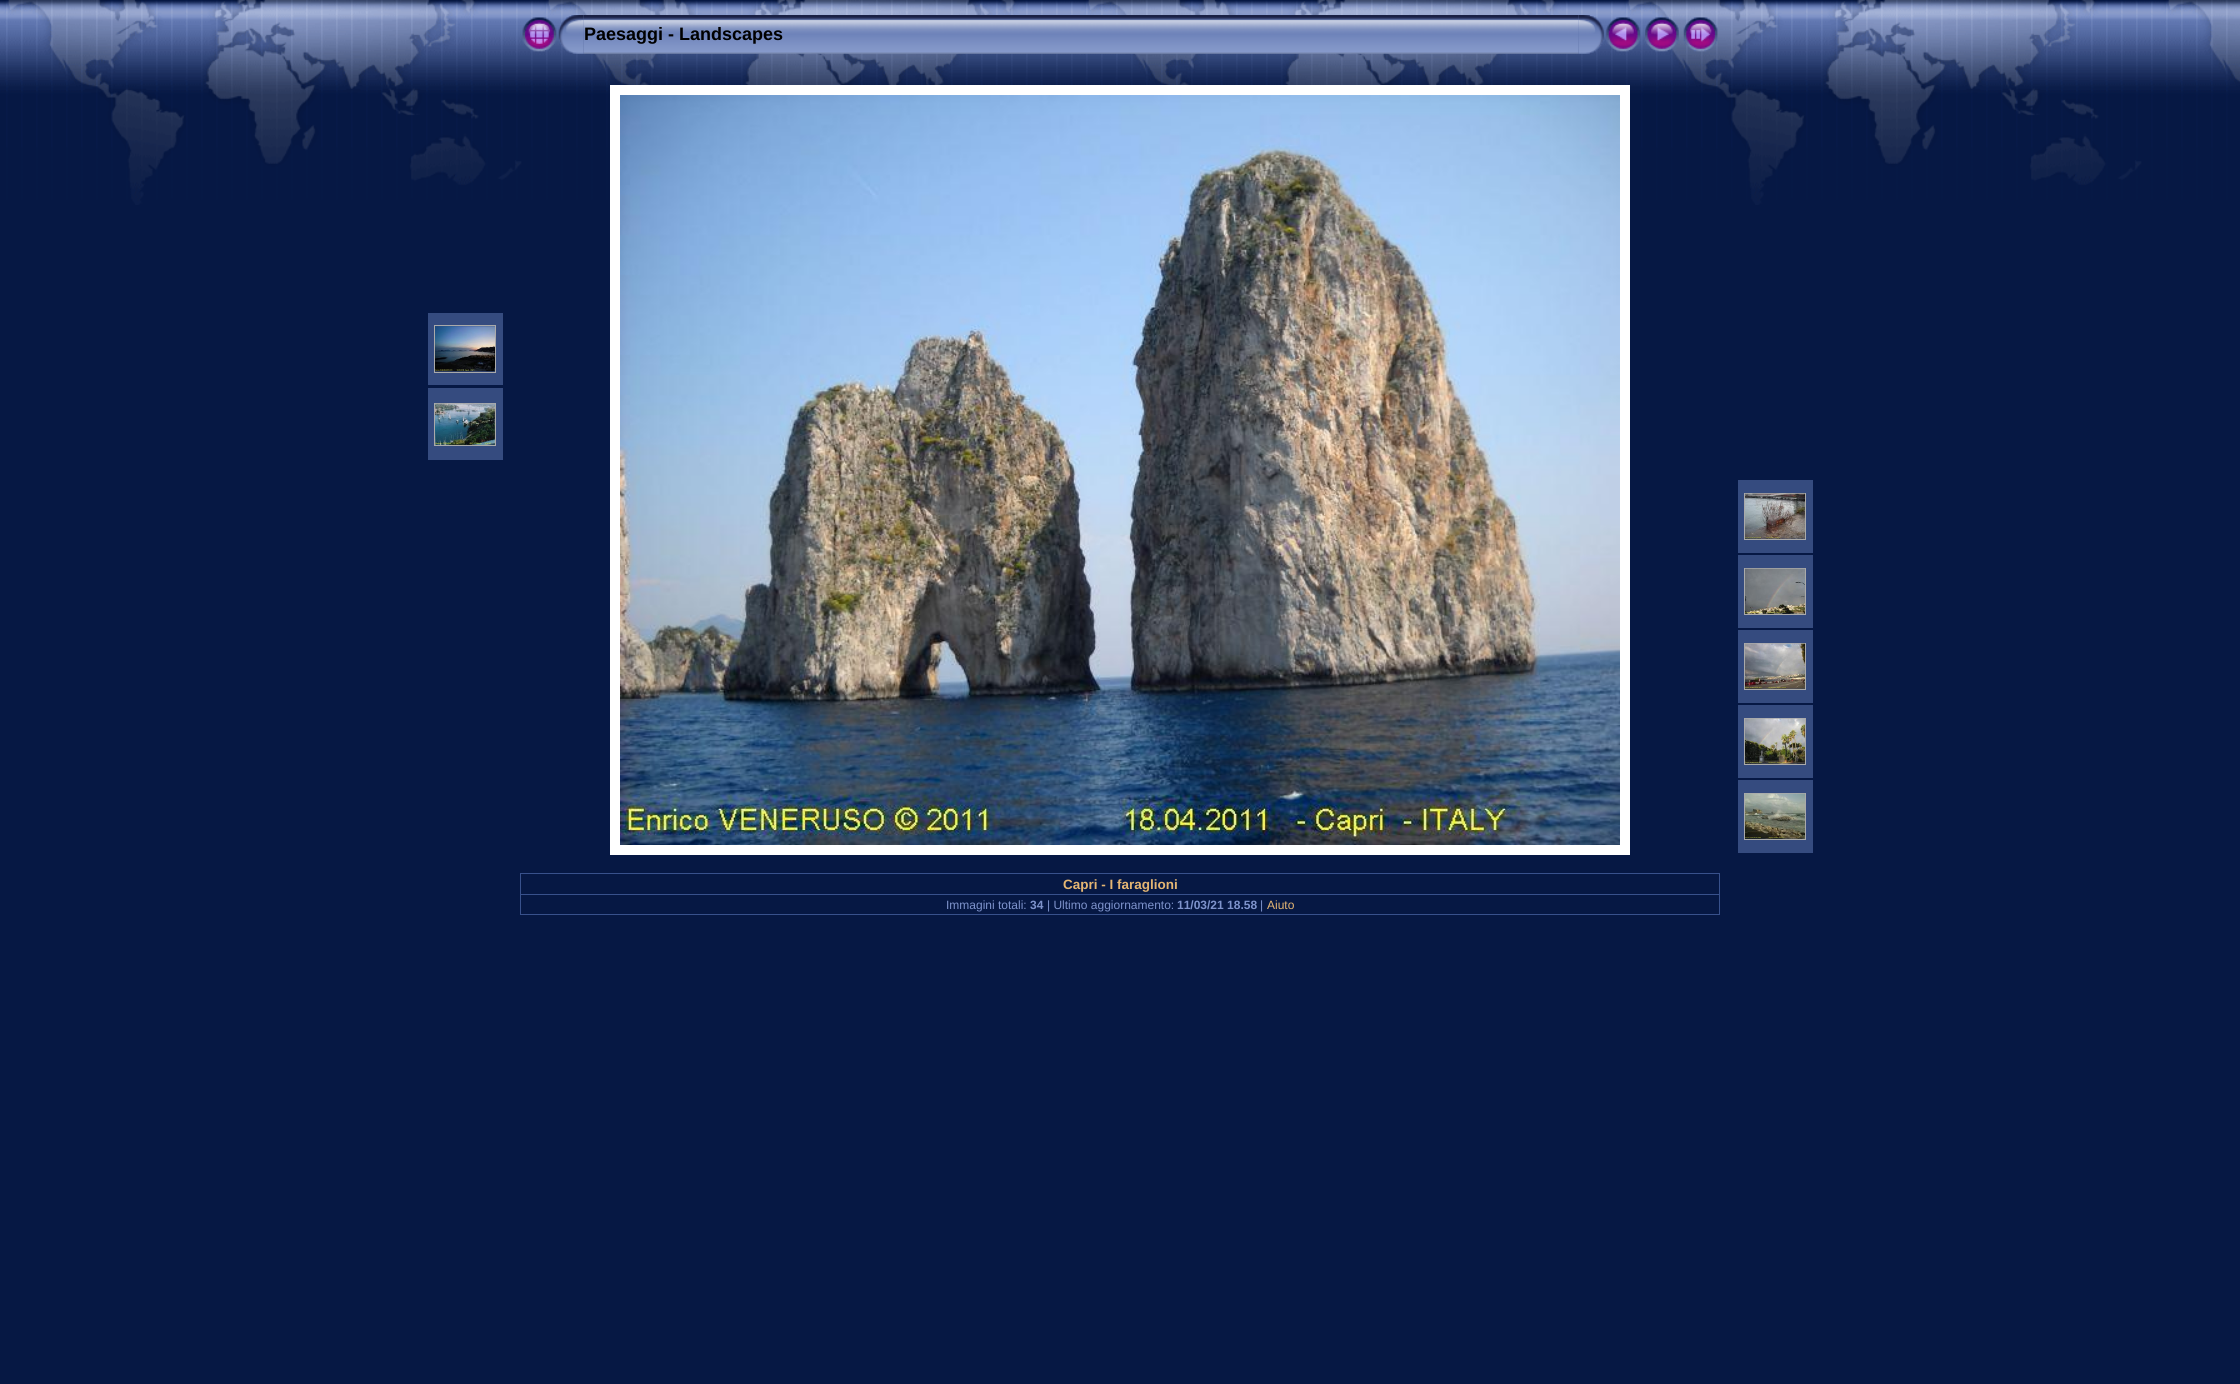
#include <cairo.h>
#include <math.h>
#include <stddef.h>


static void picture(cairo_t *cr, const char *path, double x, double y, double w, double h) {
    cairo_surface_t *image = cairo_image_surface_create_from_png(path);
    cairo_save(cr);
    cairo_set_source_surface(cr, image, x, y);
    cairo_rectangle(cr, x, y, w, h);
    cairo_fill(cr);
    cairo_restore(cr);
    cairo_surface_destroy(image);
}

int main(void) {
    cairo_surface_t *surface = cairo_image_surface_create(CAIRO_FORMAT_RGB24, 2240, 1384);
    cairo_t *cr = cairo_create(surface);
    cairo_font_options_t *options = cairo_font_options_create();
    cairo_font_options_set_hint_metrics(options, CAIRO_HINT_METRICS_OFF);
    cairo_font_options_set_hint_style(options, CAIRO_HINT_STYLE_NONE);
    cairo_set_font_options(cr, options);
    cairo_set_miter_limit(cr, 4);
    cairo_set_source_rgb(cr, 0.024, 0.094, 0.267);
    cairo_paint(cr);
    picture(cr, "img1.png", 0, 0, 2240, 205);
    picture(cr, "img2.png", 522, 17, 35, 35);
    picture(cr, "img4.png", 583, 15, 996, 39);
    picture(cr, "img3.png", 558, 15, 26, 39);
    cairo_select_font_face(cr, "Liberation Sans", CAIRO_FONT_SLANT_NORMAL, CAIRO_FONT_WEIGHT_BOLD);
    cairo_set_font_size(cr, 18);
    cairo_set_source_rgb(cr, 0, 0, 0);
    cairo_move_to(cr, 584, 40);
    cairo_show_text(cr, "Paesaggi - Landscapes");
    picture(cr, "img5.png", 1578, 15, 26, 39);
    picture(cr, "img6.png", 1606, 17, 35, 35);
    picture(cr, "img7.png", 1645, 17, 34, 35);
    picture(cr, "img8.png", 1683, 17, 35, 35);
    cairo_set_source_rgb(cr, 0.208, 0.294, 0.498);
    cairo_rectangle(cr, 428, 313, 75, 72);
    cairo_fill(cr);
    cairo_rectangle(cr, 434.5, 325.5, 61, 47);
    cairo_set_source_rgb(cr, 0.667, 0.667, 0.667);
    cairo_set_line_width(cr, 1);
    cairo_stroke(cr);
    picture(cr, "img9.png", 435, 326, 60, 46);
    cairo_set_source_rgb(cr, 0.208, 0.294, 0.498);
    cairo_rectangle(cr, 428, 388, 75, 72);
    cairo_fill(cr);
    cairo_rectangle(cr, 434.5, 403.5, 61, 42);
    cairo_set_source_rgb(cr, 0.667, 0.667, 0.667);
    cairo_stroke(cr);
    picture(cr, "img10.png", 435, 403, 60, 42);
    cairo_rectangle(cr, 615, 90, 1010, 760);
    cairo_set_source_rgb(cr, 1, 1, 1);
    cairo_set_line_width(cr, 10);
    cairo_stroke(cr);
    picture(cr, "img11.png", 620, 95, 1000, 750);
    cairo_set_source_rgb(cr, 0.208, 0.294, 0.498);
    cairo_rectangle(cr, 1738, 480, 75, 73);
    cairo_fill(cr);
    cairo_rectangle(cr, 1744.5, 493.5, 61, 46);
    cairo_set_source_rgb(cr, 0.667, 0.667, 0.667);
    cairo_set_line_width(cr, 1);
    cairo_stroke(cr);
    picture(cr, "img12.png", 1745, 493, 60, 46);
    cairo_set_source_rgb(cr, 0.208, 0.294, 0.498);
    cairo_rectangle(cr, 1738, 555, 75, 73);
    cairo_fill(cr);
    cairo_rectangle(cr, 1744.5, 568.5, 61, 46);
    cairo_set_source_rgb(cr, 0.667, 0.667, 0.667);
    cairo_stroke(cr);
    picture(cr, "img13.png", 1745, 568, 60, 46);
    cairo_set_source_rgb(cr, 0.208, 0.294, 0.498);
    cairo_rectangle(cr, 1738, 630, 75, 73);
    cairo_fill(cr);
    cairo_rectangle(cr, 1744.5, 643.5, 61, 46);
    cairo_set_source_rgb(cr, 0.667, 0.667, 0.667);
    cairo_stroke(cr);
    picture(cr, "img14.png", 1745, 643, 60, 46);
    cairo_set_source_rgb(cr, 0.208, 0.294, 0.498);
    cairo_rectangle(cr, 1738, 705, 75, 73);
    cairo_fill(cr);
    cairo_rectangle(cr, 1744.5, 718.5, 61, 46);
    cairo_set_source_rgb(cr, 0.667, 0.667, 0.667);
    cairo_stroke(cr);
    picture(cr, "img15.png", 1745, 718, 60, 46);
    cairo_set_source_rgb(cr, 0.208, 0.294, 0.498);
    cairo_rectangle(cr, 1738, 780, 75, 73);
    cairo_fill(cr);
    cairo_rectangle(cr, 1744.5, 793.5, 61, 46);
    cairo_set_source_rgb(cr, 0.667, 0.667, 0.667);
    cairo_stroke(cr);
    picture(cr, "img16.png", 1745, 793, 60, 46);
    cairo_set_source_rgb(cr, 0.22, 0.318, 0.549);
    cairo_rectangle(cr, 520, 873, 1200, 1);
    cairo_fill(cr);
    cairo_rectangle(cr, 520, 894, 1200, 1);
    cairo_fill(cr);
    cairo_rectangle(cr, 1719, 894, 1, 21);
    cairo_fill(cr);
    cairo_rectangle(cr, 1719, 873, 1, 22);
    cairo_fill(cr);
    cairo_rectangle(cr, 520, 914, 1200, 1);
    cairo_fill(cr);
    cairo_rectangle(cr, 520, 894, 1, 21);
    cairo_fill(cr);
    cairo_rectangle(cr, 520, 873, 1, 22);
    cairo_fill(cr);
    cairo_set_font_size(cr, 13.5);
    cairo_set_source_rgb(cr, 0.898, 0.714, 0.451);
    cairo_move_to(cr, 1063, 889);
    cairo_show_text(cr, "Capri - I faraglioni");
    cairo_select_font_face(cr, "Liberation Sans", CAIRO_FONT_SLANT_NORMAL, CAIRO_FONT_WEIGHT_NORMAL);
    cairo_set_font_size(cr, 12);
    cairo_set_source_rgb(cr, 0.494, 0.576, 0.8);
    cairo_move_to(cr, 946, 909);
    cairo_show_text(cr, "Immagini totali:");
    cairo_select_font_face(cr, "Liberation Sans", CAIRO_FONT_SLANT_NORMAL, CAIRO_FONT_WEIGHT_BOLD);
    cairo_move_to(cr, 1030, 909);
    cairo_show_text(cr, "34");
    cairo_select_font_face(cr, "Liberation Sans", CAIRO_FONT_SLANT_NORMAL, CAIRO_FONT_WEIGHT_NORMAL);
    cairo_move_to(cr, 1047, 909);
    cairo_show_text(cr, "| Ultimo aggiornamento:");
    cairo_select_font_face(cr, "Liberation Sans", CAIRO_FONT_SLANT_NORMAL, CAIRO_FONT_WEIGHT_BOLD);
    cairo_move_to(cr, 1177, 909);
    cairo_show_text(cr, "11/03/21 18.58");
    cairo_select_font_face(cr, "Liberation Sans", CAIRO_FONT_SLANT_NORMAL, CAIRO_FONT_WEIGHT_NORMAL);
    cairo_move_to(cr, 1260, 909);
    cairo_show_text(cr, "|");
    cairo_set_source_rgb(cr, 0.898, 0.714, 0.451);
    cairo_move_to(cr, 1267, 909);
    cairo_show_text(cr, "Aiuto");
    cairo_surface_write_to_png(surface, "page.png");
    cairo_font_options_destroy(options);
    cairo_destroy(cr);
    cairo_surface_destroy(surface);
    return 0;
}
